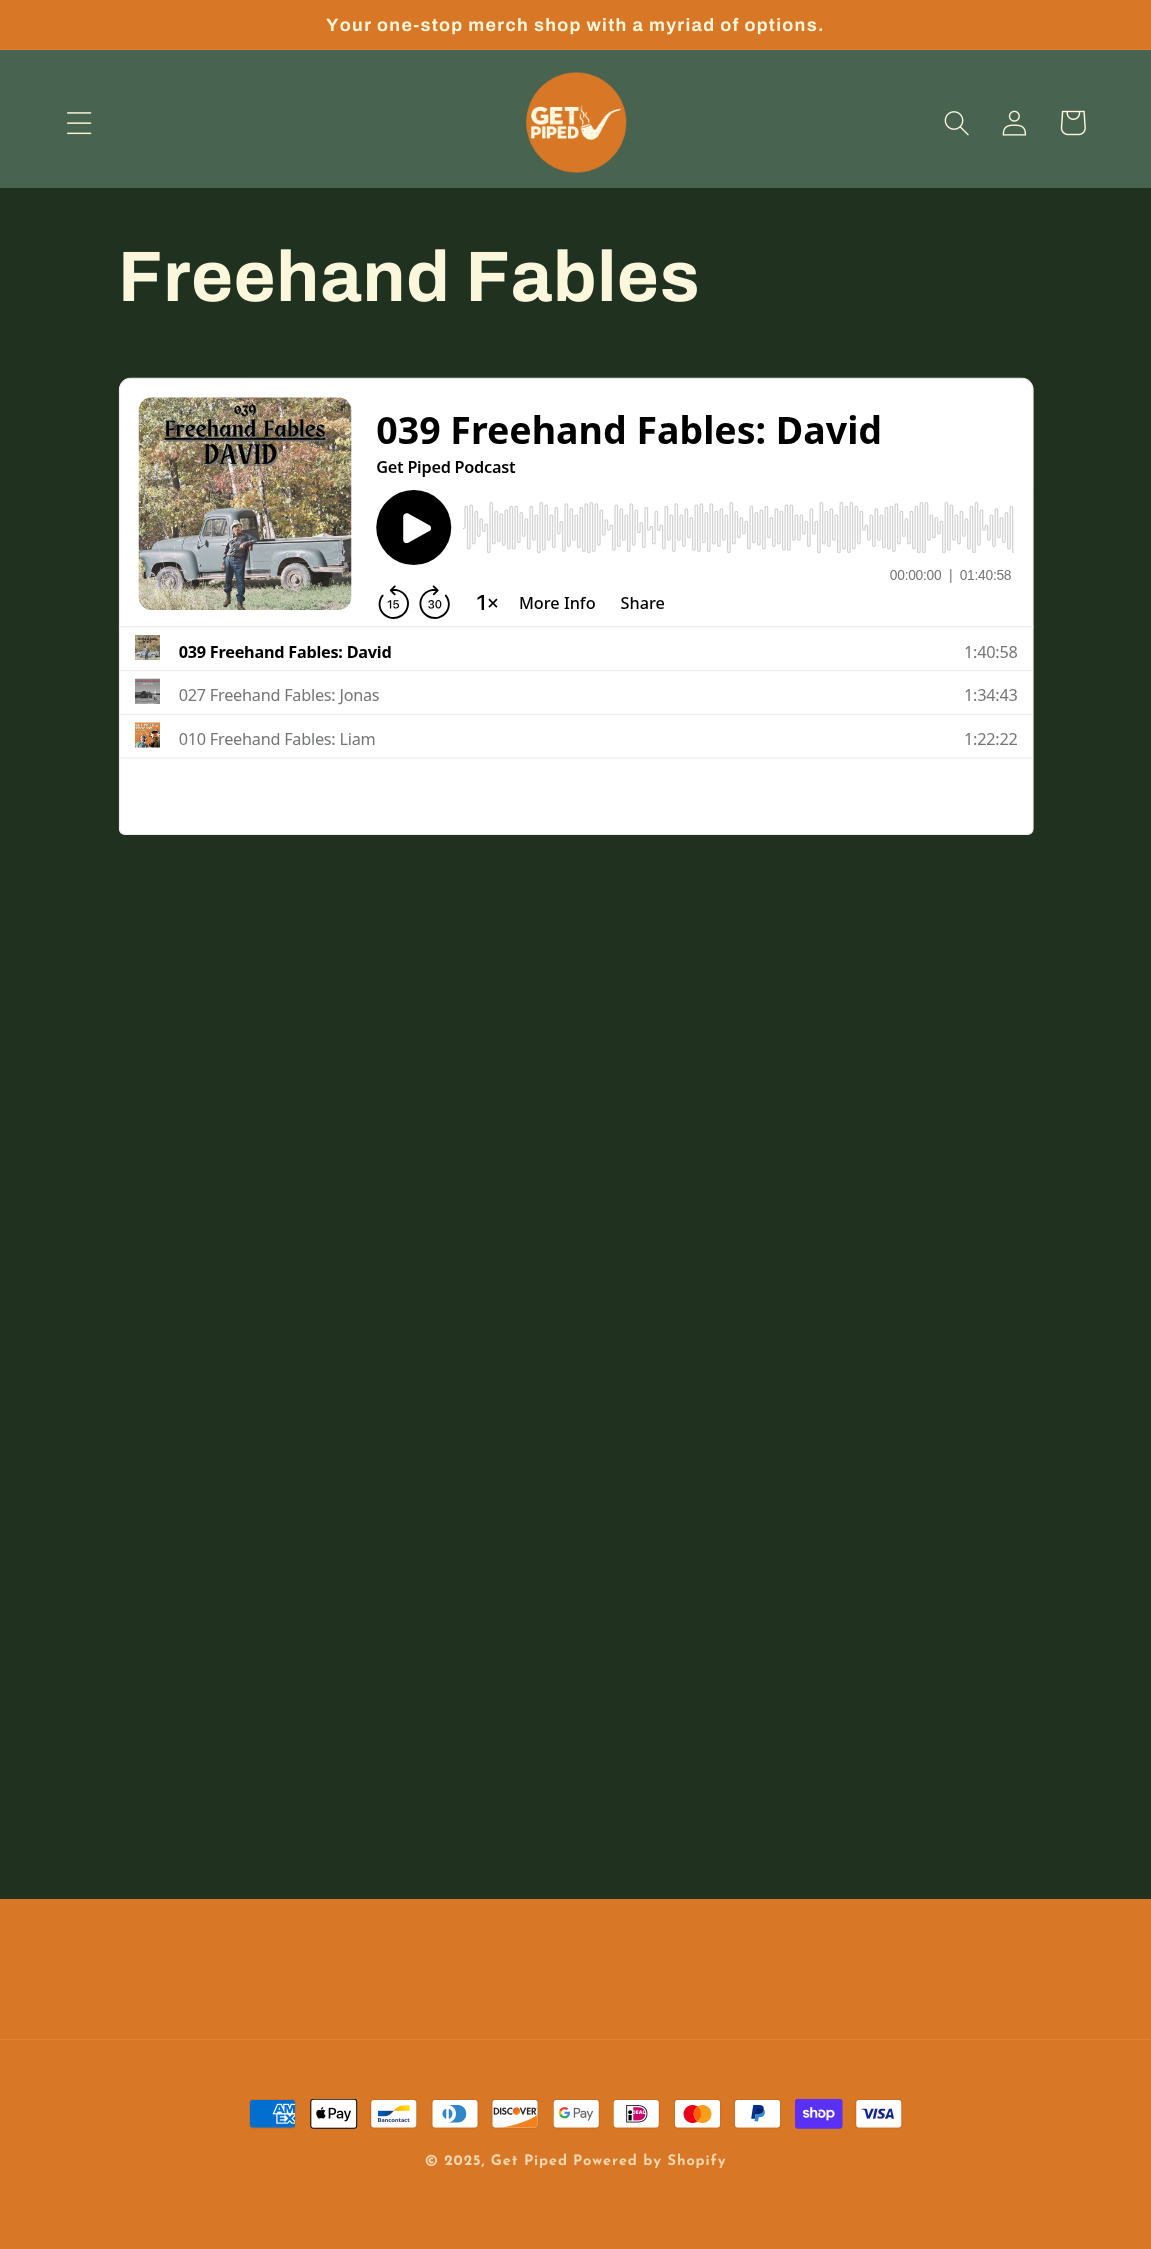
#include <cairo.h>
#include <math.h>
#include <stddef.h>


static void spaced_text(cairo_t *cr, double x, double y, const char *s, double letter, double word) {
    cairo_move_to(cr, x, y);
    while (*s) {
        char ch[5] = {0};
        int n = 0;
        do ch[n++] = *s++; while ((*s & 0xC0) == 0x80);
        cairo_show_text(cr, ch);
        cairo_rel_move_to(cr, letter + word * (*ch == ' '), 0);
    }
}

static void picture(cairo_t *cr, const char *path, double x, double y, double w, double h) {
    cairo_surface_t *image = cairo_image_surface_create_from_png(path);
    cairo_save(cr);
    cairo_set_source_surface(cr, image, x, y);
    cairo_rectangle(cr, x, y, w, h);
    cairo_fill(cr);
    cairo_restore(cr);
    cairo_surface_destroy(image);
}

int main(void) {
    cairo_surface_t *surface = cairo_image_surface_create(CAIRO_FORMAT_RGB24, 1151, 2249);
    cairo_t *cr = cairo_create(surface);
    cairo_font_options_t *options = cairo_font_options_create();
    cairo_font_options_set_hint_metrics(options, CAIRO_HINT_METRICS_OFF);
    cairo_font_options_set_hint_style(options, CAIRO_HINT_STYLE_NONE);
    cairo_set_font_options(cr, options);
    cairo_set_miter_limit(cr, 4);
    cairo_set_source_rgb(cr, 0.129, 0.192, 0.122);
    cairo_paint(cr);
    cairo_set_source_rgb(cr, 0.847, 0.471, 0.153);
    cairo_rectangle(cr, 0, 0, 1151, 49);
    cairo_fill(cr);
    cairo_set_source_rgb(cr, 0.859, 0.51, 0.208);
    cairo_rectangle(cr, 0, 49, 1151, 1);
    cairo_fill(cr);
    cairo_select_font_face(cr, "Archivo", CAIRO_FONT_SLANT_NORMAL, CAIRO_FONT_WEIGHT_BOLD);
    cairo_set_font_size(cr, 17.9);
    cairo_set_source_rgb(cr, 0.984, 0.965, 0.863);
    spaced_text(cr, 326, 31, "Your one-stop merch shop with a myriad of options.", 1.3, 0);
    cairo_set_source_rgb(cr, 0.282, 0.388, 0.314);
    cairo_rectangle(cr, 0, 50, 1151, 138);
    cairo_fill(cr);
    picture(cr, "img1.png", 67, 112, 25, 23);
    picture(cr, "img2.png", 526, 72, 101, 101);
    picture(cr, "img3.png", 944, 111, 25, 25);
    picture(cr, "img4.png", 1002, 110, 25, 26);
    picture(cr, "img5.png", 1060, 110, 26, 26);
    cairo_set_font_size(cr, 71.5);
    cairo_set_source_rgb(cr, 0.984, 0.965, 0.863);
    spaced_text(cr, 118, 301, "Freehand Fables", 0.8, 0);
    picture(cr, "img6.png", 118, 377, 916, 458);
    cairo_set_source_rgb(cr, 0.847, 0.471, 0.153);
    cairo_rectangle(cr, 0, 1899, 1151, 350);
    cairo_fill(cr);
    cairo_set_source_rgb(cr, 0.859, 0.51, 0.208);
    cairo_rectangle(cr, 0, 2039, 1151, 1);
    cairo_fill(cr);
    picture(cr, "img7.png", 249, 2099, 47, 30);
    picture(cr, "img8.png", 310, 2099, 48, 30);
    picture(cr, "img9.png", 370, 2099, 48, 30);
    picture(cr, "img10.png", 431, 2099, 48, 30);
    picture(cr, "img11.png", 491, 2099, 48, 30);
    picture(cr, "img12.png", 553, 2099, 47, 30);
    picture(cr, "img13.png", 613, 2099, 47, 30);
    picture(cr, "img14.png", 674, 2099, 47, 30);
    picture(cr, "img15.png", 734, 2099, 47, 30);
    picture(cr, "img16.png", 795, 2099, 48, 30);
    picture(cr, "img17.png", 855, 2099, 48, 30);
    cairo_select_font_face(cr, "Josefin Sans", CAIRO_FONT_SLANT_NORMAL, CAIRO_FONT_WEIGHT_BOLD);
    cairo_set_font_size(cr, 14.5);
    cairo_set_source_rgb(cr, 0.949, 0.843, 0.686);
    spaced_text(cr, 425, 2165, "© 2025, Get Piped", 0.9, 0);
    spaced_text(cr, 573, 2165, "Powered by Shopify", 0.9, 0);
    cairo_surface_write_to_png(surface, "page.png");
    cairo_font_options_destroy(options);
    cairo_destroy(cr);
    cairo_surface_destroy(surface);
    return 0;
}
